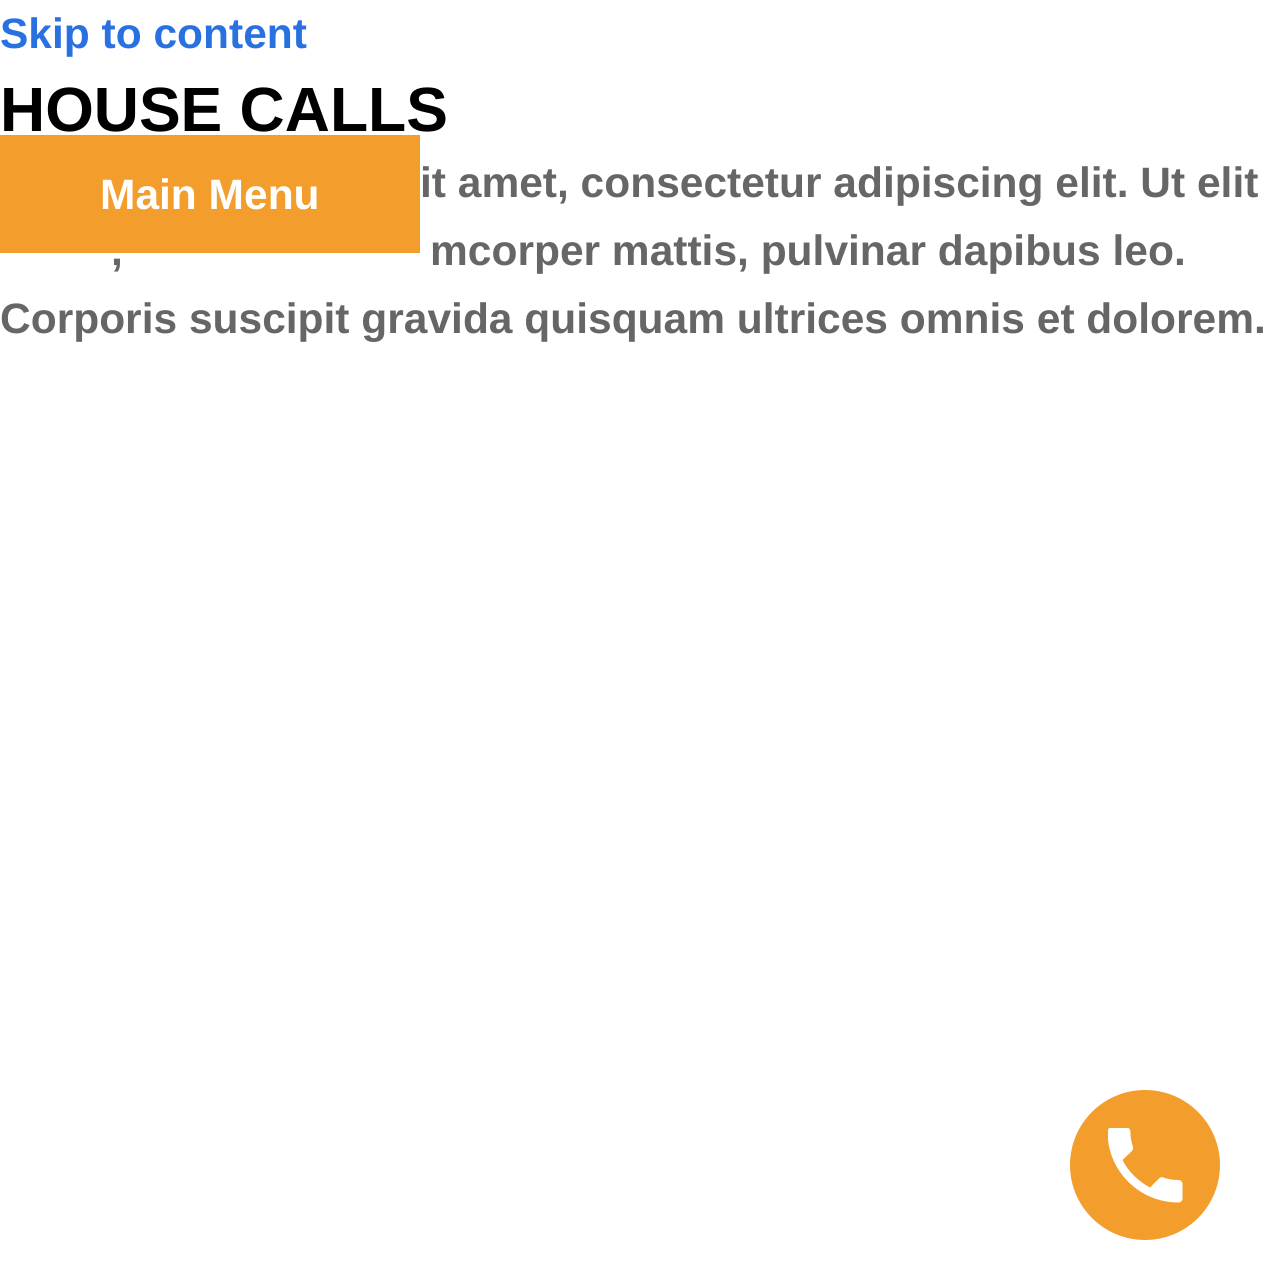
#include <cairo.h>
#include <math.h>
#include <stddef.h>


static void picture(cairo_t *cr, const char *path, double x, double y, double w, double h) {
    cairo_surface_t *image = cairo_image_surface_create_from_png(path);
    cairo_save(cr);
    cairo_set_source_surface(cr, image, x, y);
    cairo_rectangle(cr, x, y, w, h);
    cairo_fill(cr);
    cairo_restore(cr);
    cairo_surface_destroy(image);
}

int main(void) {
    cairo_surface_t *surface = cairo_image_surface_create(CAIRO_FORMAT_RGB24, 1269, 1288);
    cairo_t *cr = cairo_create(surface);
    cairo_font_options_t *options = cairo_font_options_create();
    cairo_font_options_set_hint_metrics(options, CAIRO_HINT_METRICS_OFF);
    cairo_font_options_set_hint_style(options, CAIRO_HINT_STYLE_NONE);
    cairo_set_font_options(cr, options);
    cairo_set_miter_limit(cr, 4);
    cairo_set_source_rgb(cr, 1, 1, 1);
    cairo_paint(cr);
    cairo_select_font_face(cr, "Liberation Sans", CAIRO_FONT_SLANT_NORMAL, CAIRO_FONT_WEIGHT_BOLD);
    cairo_set_font_size(cr, 42.5);
    cairo_set_source_rgb(cr, 0.161, 0.439, 0.882);
    cairo_move_to(cr, 0, 48);
    cairo_show_text(cr, "Skip to content");
    cairo_set_font_size(cr, 62.5);
    cairo_set_source_rgb(cr, 0, 0, 0);
    cairo_move_to(cr, 0, 131);
    cairo_show_text(cr, "HOUSE CALLS");
    cairo_set_font_size(cr, 42.5);
    cairo_set_source_rgb(cr, 0.4, 0.4, 0.4);
    cairo_move_to(cr, 420, 197);
    cairo_show_text(cr, "it amet, consectetur adipiscing elit. Ut elit");
    cairo_move_to(cr, 111, 265);
    cairo_show_text(cr, ",");
    cairo_move_to(cr, 430, 265);
    cairo_show_text(cr, "mcorper mattis, pulvinar dapibus leo.");
    cairo_move_to(cr, 0, 333);
    cairo_show_text(cr, "Corporis suscipit gravida quisquam ultrices omnis et dolorem.");
    cairo_set_source_rgb(cr, 0.953, 0.616, 0.173);
    cairo_rectangle(cr, 0, 135, 420, 118);
    cairo_fill(cr);
    cairo_set_source_rgb(cr, 1, 1, 1);
    cairo_move_to(cr, 100, 209);
    cairo_show_text(cr, "Main Menu");
    cairo_set_source_rgb(cr, 0.953, 0.616, 0.173);
    cairo_new_path(cr);
    cairo_arc(cr, 1145, 1165, 75, 0, 2 * M_PI);
    cairo_fill(cr);
    picture(cr, "img1.png", 1108, 1128, 75, 75);
    cairo_surface_write_to_png(surface, "page.png");
    cairo_font_options_destroy(options);
    cairo_destroy(cr);
    cairo_surface_destroy(surface);
    return 0;
}
